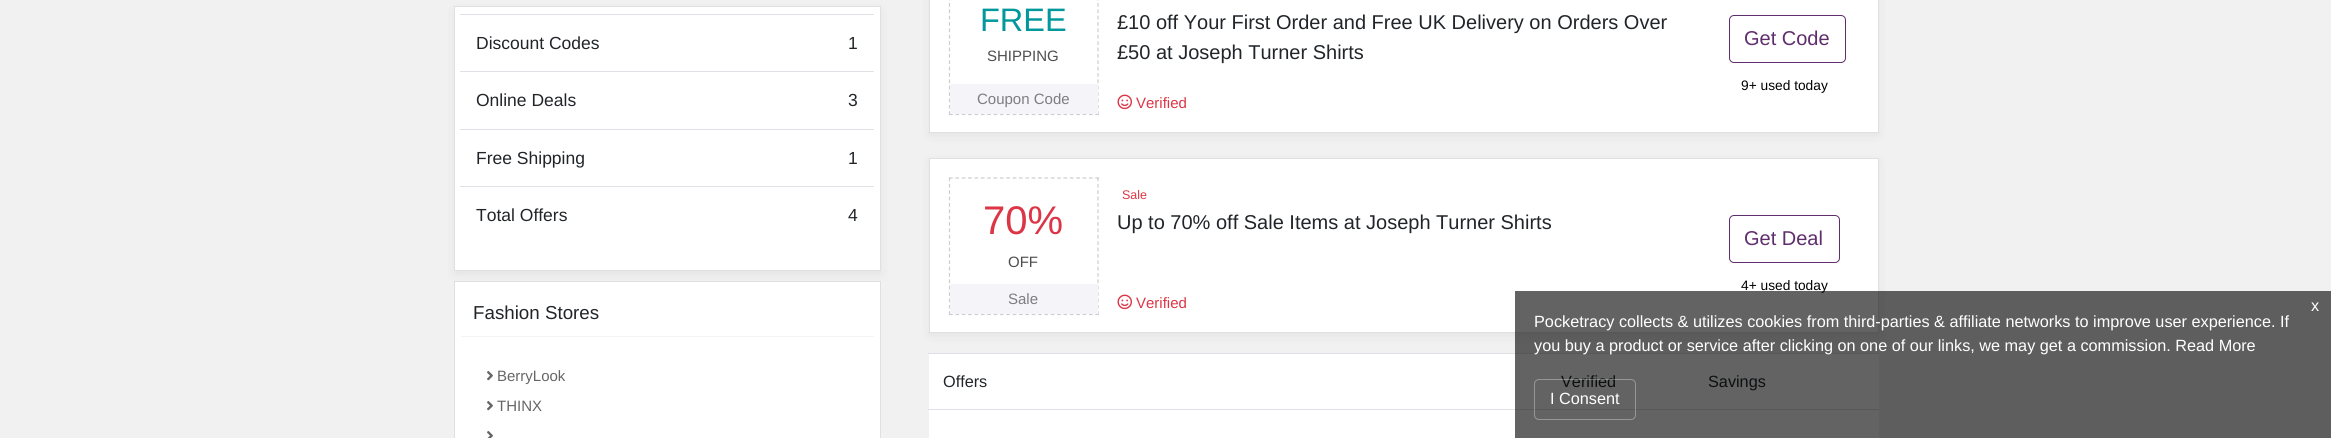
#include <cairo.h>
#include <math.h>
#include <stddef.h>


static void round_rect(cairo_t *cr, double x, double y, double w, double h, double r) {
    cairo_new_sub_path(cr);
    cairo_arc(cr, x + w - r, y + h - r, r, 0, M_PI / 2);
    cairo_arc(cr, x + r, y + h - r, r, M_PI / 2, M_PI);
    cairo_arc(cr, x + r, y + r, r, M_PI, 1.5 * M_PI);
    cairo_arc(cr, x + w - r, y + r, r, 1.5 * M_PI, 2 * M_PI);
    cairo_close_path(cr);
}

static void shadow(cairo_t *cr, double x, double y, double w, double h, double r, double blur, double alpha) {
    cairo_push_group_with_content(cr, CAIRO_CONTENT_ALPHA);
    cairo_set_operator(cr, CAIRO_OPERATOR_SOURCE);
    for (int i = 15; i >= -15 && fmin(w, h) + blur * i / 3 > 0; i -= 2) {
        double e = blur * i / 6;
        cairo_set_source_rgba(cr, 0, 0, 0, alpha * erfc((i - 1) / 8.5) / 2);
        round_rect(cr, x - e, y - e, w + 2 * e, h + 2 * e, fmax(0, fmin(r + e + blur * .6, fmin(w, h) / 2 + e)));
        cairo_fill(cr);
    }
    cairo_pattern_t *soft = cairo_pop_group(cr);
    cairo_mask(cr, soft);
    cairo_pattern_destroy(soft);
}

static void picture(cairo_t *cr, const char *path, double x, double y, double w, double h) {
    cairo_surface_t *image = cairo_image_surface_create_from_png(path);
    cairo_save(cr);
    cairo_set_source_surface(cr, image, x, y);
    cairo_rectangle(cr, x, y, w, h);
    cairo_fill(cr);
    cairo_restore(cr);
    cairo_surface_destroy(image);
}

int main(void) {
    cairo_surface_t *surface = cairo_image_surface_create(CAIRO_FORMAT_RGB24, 2331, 438);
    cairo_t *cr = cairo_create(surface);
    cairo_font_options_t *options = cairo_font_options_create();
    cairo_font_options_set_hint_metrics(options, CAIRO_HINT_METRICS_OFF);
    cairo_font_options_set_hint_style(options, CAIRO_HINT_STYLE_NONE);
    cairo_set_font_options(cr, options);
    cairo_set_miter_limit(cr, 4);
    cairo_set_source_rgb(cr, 0.945, 0.945, 0.945);
    cairo_paint(cr);
    cairo_set_source_rgb(cr, 0, 0, 0);
    shadow(cr, 454, 10, 427, 265, 0, 5, 0.05);
    cairo_set_source_rgb(cr, 1, 1, 1);
    cairo_rectangle(cr, 454.5, 6.5, 426, 264);
    cairo_fill_preserve(cr);
    cairo_set_source_rgb(cr, 0.878, 0.878, 0.878);
    cairo_set_line_width(cr, 1);
    cairo_stroke(cr);
    cairo_select_font_face(cr, "Liberation Sans", CAIRO_FONT_SLANT_NORMAL, CAIRO_FONT_WEIGHT_NORMAL);
    cairo_set_font_size(cr, 17.5);
    cairo_set_source_rgb(cr, 0.129, 0.145, 0.161);
    cairo_move_to(cr, 476, 49);
    cairo_show_text(cr, "Discount Codes");
    cairo_set_source_rgb(cr, 0.871, 0.886, 0.902);
    cairo_rectangle(cr, 460, 14, 414, 1);
    cairo_fill(cr);
    cairo_set_source_rgb(cr, 0.129, 0.145, 0.161);
    cairo_move_to(cr, 848, 49);
    cairo_show_text(cr, "1");
    cairo_move_to(cr, 476, 106);
    cairo_show_text(cr, "Online Deals");
    cairo_set_source_rgb(cr, 0.871, 0.886, 0.902);
    cairo_rectangle(cr, 460, 71, 414, 1);
    cairo_fill(cr);
    cairo_set_source_rgb(cr, 0.129, 0.145, 0.161);
    cairo_move_to(cr, 848, 106);
    cairo_show_text(cr, "3");
    cairo_move_to(cr, 476, 164);
    cairo_show_text(cr, "Free Shipping");
    cairo_set_source_rgb(cr, 0.871, 0.886, 0.902);
    cairo_rectangle(cr, 460, 129, 414, 1);
    cairo_fill(cr);
    cairo_set_source_rgb(cr, 0.129, 0.145, 0.161);
    cairo_move_to(cr, 848, 164);
    cairo_show_text(cr, "1");
    cairo_move_to(cr, 476, 221);
    cairo_show_text(cr, "Total Offers");
    cairo_set_source_rgb(cr, 0.871, 0.886, 0.902);
    cairo_rectangle(cr, 460, 186, 414, 1);
    cairo_fill(cr);
    cairo_set_source_rgb(cr, 0.129, 0.145, 0.161);
    cairo_move_to(cr, 848, 221);
    cairo_show_text(cr, "4");
    cairo_set_source_rgb(cr, 1, 1, 1);
    cairo_rectangle(cr, 454.5, 281.5, 426, 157);
    cairo_fill_preserve(cr);
    cairo_set_source_rgb(cr, 0.878, 0.878, 0.878);
    cairo_stroke(cr);
    cairo_set_source_rgb(cr, 0.957, 0.957, 0.957);
    cairo_rectangle(cr, 461, 336, 413, 1);
    cairo_fill(cr);
    cairo_set_font_size(cr, 18.75);
    cairo_set_source_rgb(cr, 0.129, 0.145, 0.161);
    cairo_move_to(cr, 473, 319);
    cairo_show_text(cr, "Fashion Stores");
    picture(cr, "img1.png", 487, 371, 6, 10);
    cairo_set_font_size(cr, 15);
    cairo_set_source_rgb(cr, 0.4, 0.4, 0.4);
    cairo_move_to(cr, 497, 381);
    cairo_show_text(cr, "BerryLook");
    picture(cr, "img1.png", 487, 401, 6, 10);
    cairo_move_to(cr, 497, 411);
    cairo_show_text(cr, "THINX");
    picture(cr, "img2.png", 487, 431, 6, 7);
    cairo_set_source_rgb(cr, 0, 0, 0);
    shadow(cr, 929, -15, 950, 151, 0, 5, 0.05);
    cairo_set_source_rgb(cr, 1, 1, 1);
    cairo_rectangle(cr, 929.5, -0.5, 949, 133);
    cairo_fill_preserve(cr);
    cairo_set_source_rgb(cr, 0.878, 0.878, 0.878);
    cairo_stroke(cr);
    cairo_new_path(cr);
    cairo_move_to(cr, 1098, -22.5);
    cairo_line_to(cr, 1098, 115);
    cairo_set_source_rgb(cr, 0.804, 0.804, 0.804);
    cairo_set_line_width(cr, 1.2);
    cairo_set_dash(cr, (double[]){3.75, 2.62}, 2, 0);
    cairo_stroke(cr);
    cairo_new_path(cr);
    cairo_move_to(cr, 949, 114.5);
    cairo_line_to(cr, 1099, 114.5);
    cairo_set_dash(cr, (double[]){3.75, 2.61}, 2, 0);
    cairo_stroke(cr);
    cairo_new_path(cr);
    cairo_move_to(cr, 949.5, -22.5);
    cairo_line_to(cr, 949.5, 115);
    cairo_set_dash(cr, (double[]){3.75, 2.62}, 2, 0);
    cairo_stroke(cr);
    cairo_set_font_size(cr, 32.5);
    cairo_set_source_rgb(cr, 0, 0.592, 0.616);
    cairo_move_to(cr, 980, 31);
    cairo_show_text(cr, "FREE");
    cairo_set_font_size(cr, 15);
    cairo_set_source_rgb(cr, 0.302, 0.302, 0.302);
    cairo_move_to(cr, 987, 61);
    cairo_show_text(cr, "SHIPPING");
    cairo_set_source_rgb(cr, 0.957, 0.957, 0.973);
    cairo_rectangle(cr, 950, 84, 148, 30);
    cairo_fill(cr);
    cairo_set_source_rgb(cr, 0.494, 0.494, 0.502);
    cairo_move_to(cr, 977, 104);
    cairo_show_text(cr, "Coupon Code");
    cairo_set_font_size(cr, 20);
    cairo_set_source_rgb(cr, 0.129, 0.145, 0.161);
    cairo_move_to(cr, 1117, 29);
    cairo_show_text(cr, "£10 off Your First Order and Free UK Delivery on Orders Over");
    cairo_move_to(cr, 1117, 59);
    cairo_show_text(cr, "£50 at Joseph Turner Shirts");
    picture(cr, "img3.png", 1117, 94, 15, 16);
    cairo_set_font_size(cr, 15);
    cairo_set_source_rgb(cr, 0.863, 0.208, 0.271);
    cairo_move_to(cr, 1136, 108);
    cairo_show_text(cr, "Verified");
    round_rect(cr, 1729.5, 15.5, 116, 47, 4.5);
    cairo_set_source_rgb(cr, 0.376, 0.176, 0.424);
    cairo_set_line_width(cr, 1);
    cairo_set_dash(cr, NULL, 0, 0);
    cairo_stroke(cr);
    cairo_set_font_size(cr, 20);
    cairo_move_to(cr, 1744, 45);
    cairo_show_text(cr, "Get Code");
    cairo_set_font_size(cr, 13.75);
    cairo_set_source_rgb(cr, 0, 0, 0);
    cairo_move_to(cr, 1741, 90);
    cairo_show_text(cr, "9+ used today");
    cairo_set_source_rgb(cr, 0, 0, 0);
    shadow(cr, 929, 161, 950, 175, 0, 5, 0.05);
    cairo_set_source_rgb(cr, 1, 1, 1);
    cairo_rectangle(cr, 929.5, 158.5, 949, 174);
    cairo_fill_preserve(cr);
    cairo_set_source_rgb(cr, 0.878, 0.878, 0.878);
    cairo_stroke(cr);
    cairo_new_path(cr);
    cairo_move_to(cr, 949, 178);
    cairo_line_to(cr, 1099, 178);
    cairo_set_source_rgb(cr, 0.804, 0.804, 0.804);
    cairo_set_line_width(cr, 1.2);
    cairo_set_dash(cr, (double[]){3.75, 2.61}, 2, 0);
    cairo_stroke(cr);
    cairo_new_path(cr);
    cairo_move_to(cr, 1098, 177.5);
    cairo_line_to(cr, 1098, 315);
    cairo_set_dash(cr, (double[]){3.75, 2.62}, 2, 0);
    cairo_stroke(cr);
    cairo_new_path(cr);
    cairo_move_to(cr, 949, 314.5);
    cairo_line_to(cr, 1099, 314.5);
    cairo_set_dash(cr, (double[]){3.75, 2.61}, 2, 0);
    cairo_stroke(cr);
    cairo_new_path(cr);
    cairo_move_to(cr, 949.5, 177.5);
    cairo_line_to(cr, 949.5, 315);
    cairo_set_dash(cr, (double[]){3.75, 2.62}, 2, 0);
    cairo_stroke(cr);
    cairo_set_font_size(cr, 40);
    cairo_set_source_rgb(cr, 0.863, 0.208, 0.271);
    cairo_move_to(cr, 983, 234);
    cairo_show_text(cr, "70%");
    cairo_set_font_size(cr, 15);
    cairo_set_source_rgb(cr, 0.302, 0.302, 0.302);
    cairo_move_to(cr, 1008, 267);
    cairo_show_text(cr, "OFF");
    cairo_set_source_rgb(cr, 0.957, 0.957, 0.973);
    cairo_rectangle(cr, 950, 284, 148, 30);
    cairo_fill(cr);
    cairo_set_source_rgb(cr, 0.494, 0.494, 0.502);
    cairo_move_to(cr, 1008, 304);
    cairo_show_text(cr, "Sale");
    cairo_set_font_size(cr, 12.5);
    cairo_set_source_rgb(cr, 0.863, 0.208, 0.271);
    cairo_move_to(cr, 1122, 199);
    cairo_show_text(cr, "Sale");
    cairo_set_font_size(cr, 20);
    cairo_set_source_rgb(cr, 0.129, 0.145, 0.161);
    cairo_move_to(cr, 1117, 229);
    cairo_show_text(cr, "Up to 70% off Sale Items at Joseph Turner Shirts");
    picture(cr, "img3.png", 1117, 294, 15, 16);
    cairo_set_font_size(cr, 15);
    cairo_set_source_rgb(cr, 0.863, 0.208, 0.271);
    cairo_move_to(cr, 1136, 308);
    cairo_show_text(cr, "Verified");
    round_rect(cr, 1729.5, 215.5, 110, 47, 4.5);
    cairo_set_source_rgb(cr, 0.376, 0.176, 0.424);
    cairo_set_line_width(cr, 1);
    cairo_set_dash(cr, NULL, 0, 0);
    cairo_stroke(cr);
    cairo_set_font_size(cr, 20);
    cairo_move_to(cr, 1744, 245);
    cairo_show_text(cr, "Get Deal");
    cairo_set_font_size(cr, 13.75);
    cairo_set_source_rgb(cr, 0, 0, 0);
    cairo_move_to(cr, 1741, 290);
    cairo_show_text(cr, "4+ used today");
    cairo_set_source_rgb(cr, 1, 1, 1);
    cairo_rectangle(cr, 929, 354, 950, 84);
    cairo_fill(cr);
    cairo_set_font_size(cr, 16.25);
    cairo_set_source_rgb(cr, 0.129, 0.145, 0.161);
    cairo_move_to(cr, 943, 387);
    cairo_show_text(cr, "Offers");
    cairo_move_to(cr, 1561, 387);
    cairo_show_text(cr, "Verified");
    cairo_set_source_rgb(cr, 0.871, 0.886, 0.902);
    cairo_rectangle(cr, 928, 353, 951, 1);
    cairo_fill(cr);
    cairo_set_source_rgb(cr, 0.129, 0.145, 0.161);
    cairo_move_to(cr, 1708, 387);
    cairo_show_text(cr, "Savings");
    cairo_set_source_rgb(cr, 0.871, 0.886, 0.902);
    cairo_rectangle(cr, 928, 409, 951, 1);
    cairo_fill(cr);
    cairo_set_source_rgba(cr, 0, 0, 0, 0.61);
    cairo_rectangle(cr, 1515, 291, 816, 147);
    cairo_fill(cr);
    cairo_set_source_rgb(cr, 1, 1, 1);
    cairo_move_to(cr, 2311, 311);
    cairo_show_text(cr, "x");
    cairo_move_to(cr, 1534, 327);
    cairo_show_text(cr, "Pocketracy collects & utilizes cookies from third-parties & affiliate networks to improve user experience. If");
    cairo_move_to(cr, 1534, 351);
    cairo_show_text(cr, "you buy a product or service after clicking on one of our links, we may get a commission. Read More");
    round_rect(cr, 1534.5, 379.5, 101, 40, 4.5);
    cairo_set_source_rgba(cr, 1, 1, 1, 0.33);
    cairo_stroke(cr);
    cairo_set_source_rgb(cr, 1, 1, 1);
    cairo_move_to(cr, 1550, 404);
    cairo_show_text(cr, "I Consent");
    cairo_surface_write_to_png(surface, "page.png");
    cairo_font_options_destroy(options);
    cairo_destroy(cr);
    cairo_surface_destroy(surface);
    return 0;
}
